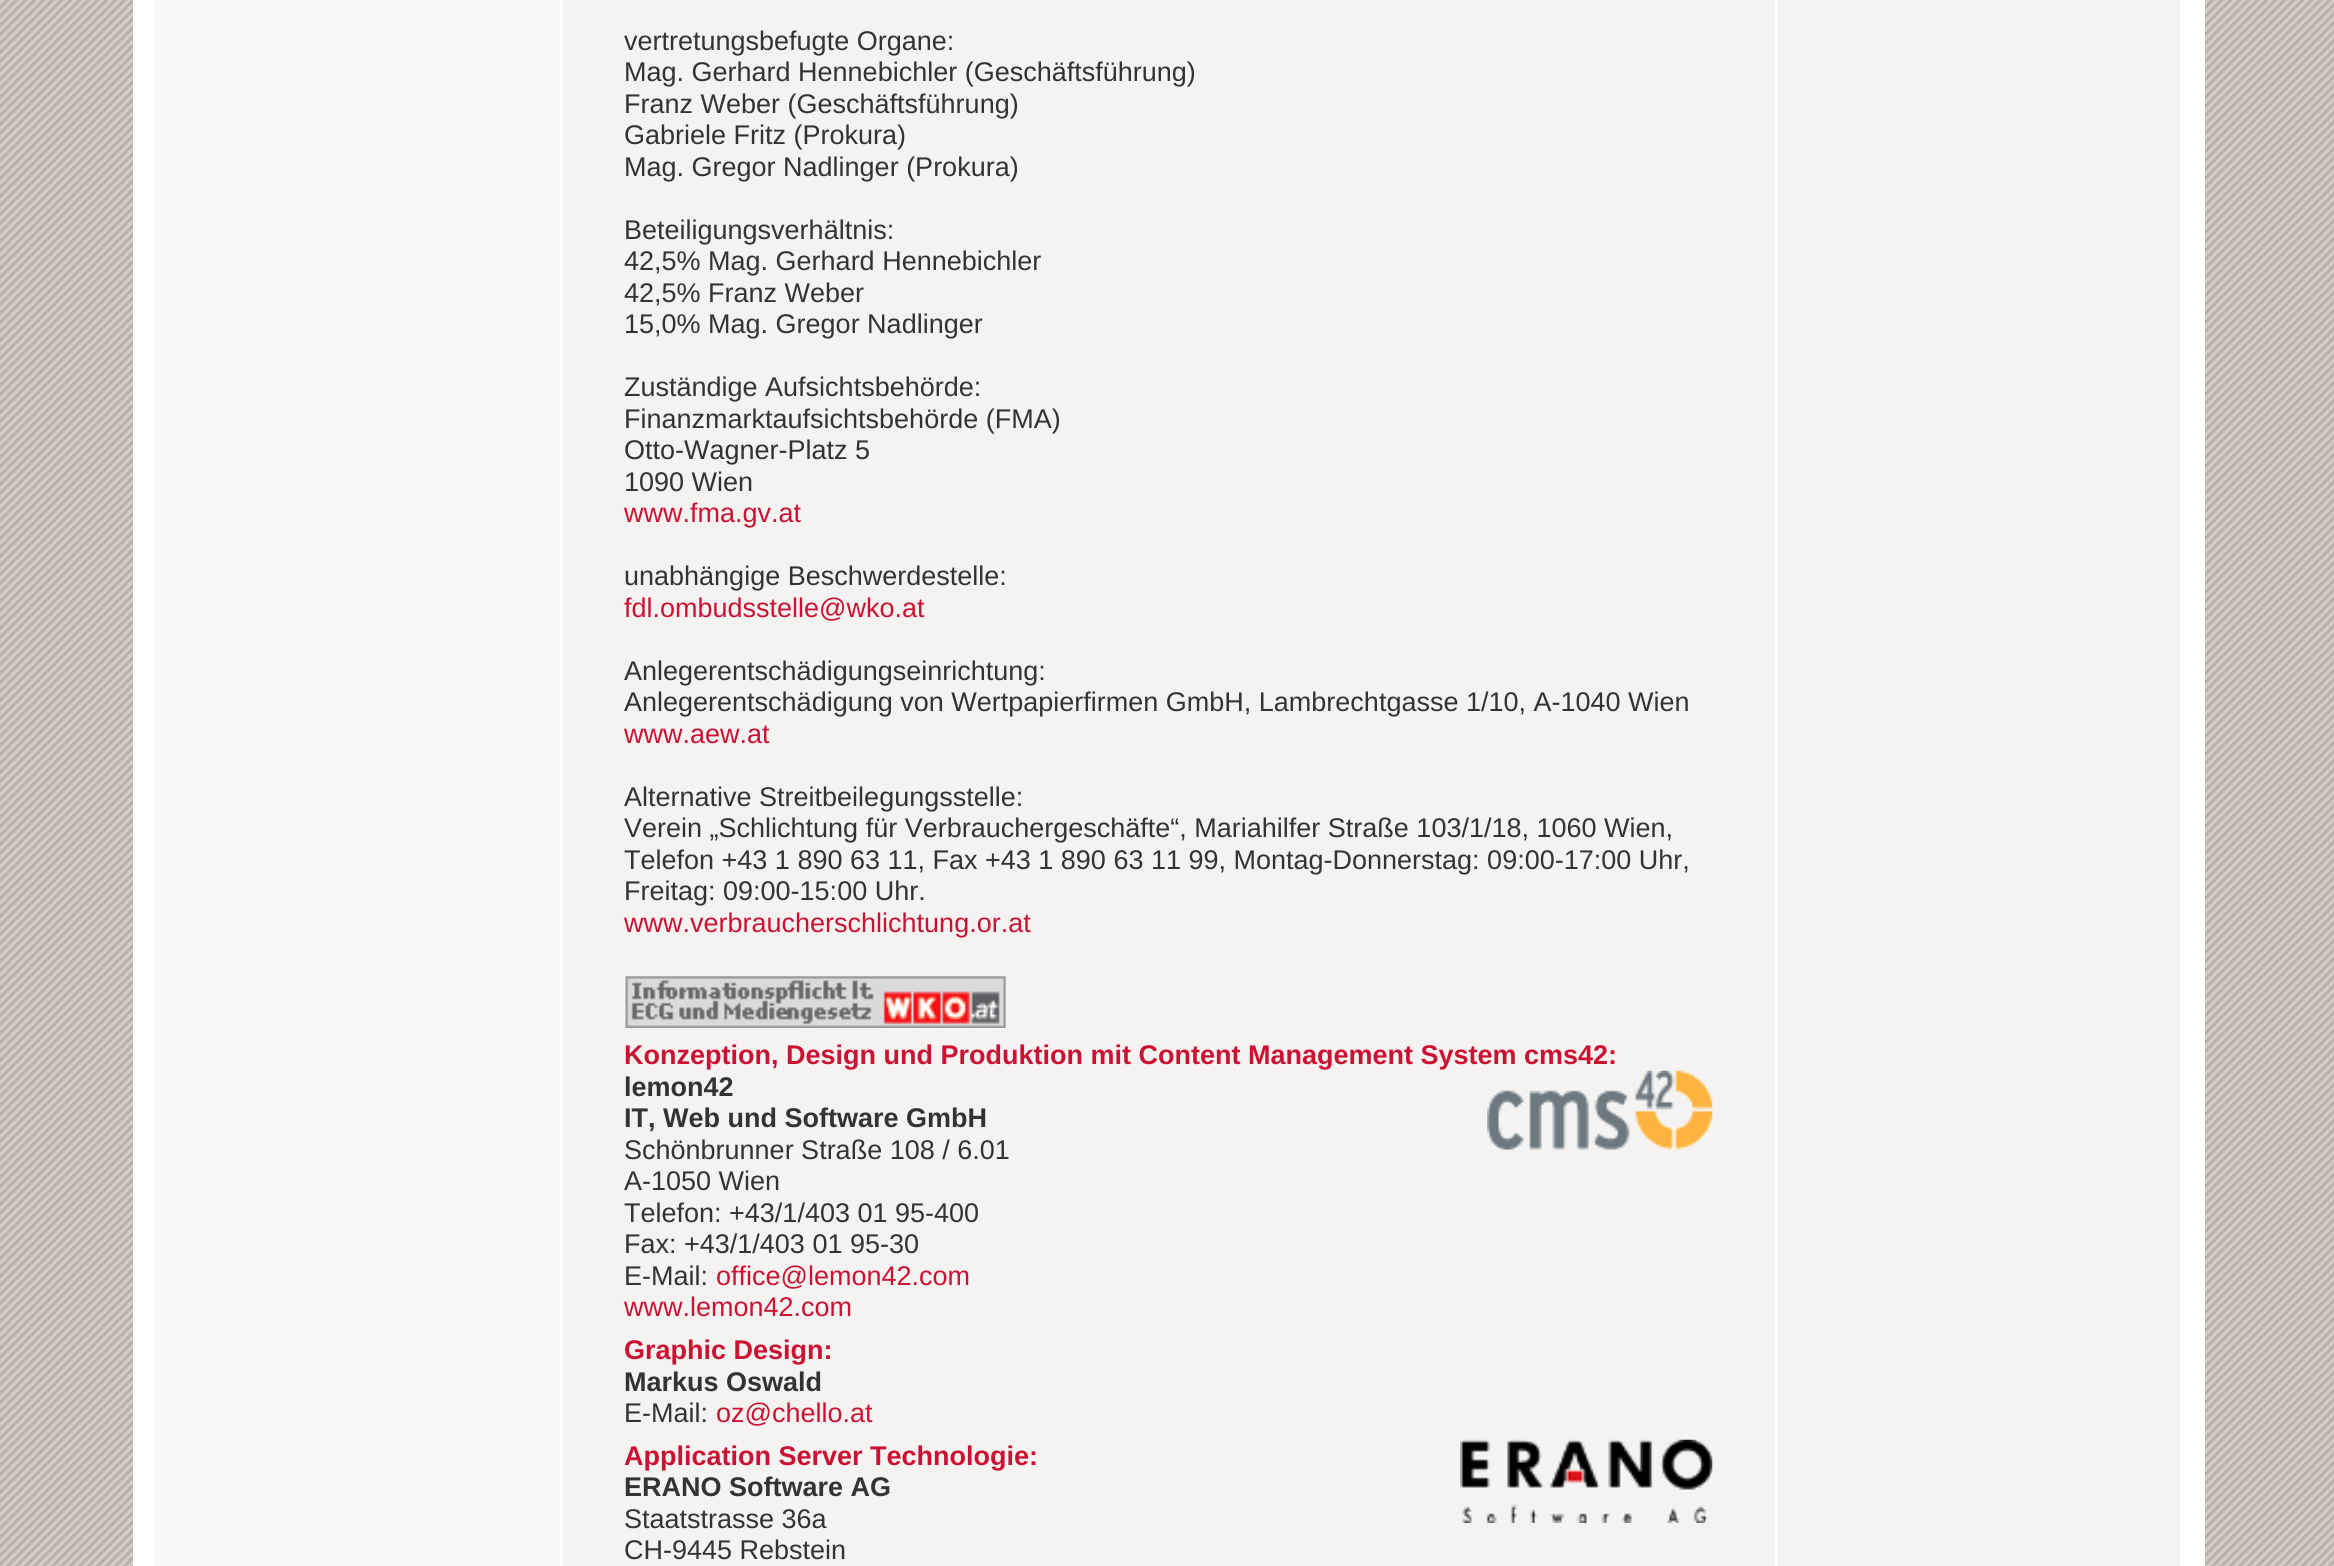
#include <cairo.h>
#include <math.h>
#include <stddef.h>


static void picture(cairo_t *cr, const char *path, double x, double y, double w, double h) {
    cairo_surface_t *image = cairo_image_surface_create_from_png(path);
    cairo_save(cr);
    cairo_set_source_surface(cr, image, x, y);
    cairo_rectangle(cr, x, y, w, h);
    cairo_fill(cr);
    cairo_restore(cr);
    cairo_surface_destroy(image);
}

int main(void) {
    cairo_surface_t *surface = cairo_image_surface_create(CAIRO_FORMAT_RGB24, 2334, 1566);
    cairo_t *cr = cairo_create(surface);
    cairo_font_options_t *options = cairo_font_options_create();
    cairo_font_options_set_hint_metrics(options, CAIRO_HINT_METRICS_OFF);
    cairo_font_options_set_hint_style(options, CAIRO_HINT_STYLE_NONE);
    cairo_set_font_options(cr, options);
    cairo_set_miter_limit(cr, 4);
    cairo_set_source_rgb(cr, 1, 1, 1);
    cairo_paint(cr);
    picture(cr, "img1.png", 0, 0, 2334, 1566);
    cairo_set_source_rgb(cr, 1, 1, 1);
    cairo_rectangle(cr, 133, 0, 2072, 1566);
    cairo_fill(cr);
    cairo_set_source_rgb(cr, 0.976, 0.976, 0.973);
    cairo_rectangle(cr, 155, 0, 405, 1566);
    cairo_fill(cr);
    cairo_set_source_rgb(cr, 0.957, 0.953, 0.945);
    cairo_rectangle(cr, 563, 0, 63, 1566);
    cairo_fill(cr);
    cairo_rectangle(cr, 1712, 0, 63, 1566);
    cairo_fill(cr);
    cairo_rectangle(cr, 626, 0, 1086, 1071);
    cairo_fill(cr);
    cairo_select_font_face(cr, "Liberation Sans", CAIRO_FONT_SLANT_NORMAL, CAIRO_FONT_WEIGHT_NORMAL);
    cairo_set_font_size(cr, 27);
    cairo_set_source_rgb(cr, 0.2, 0.2, 0.2);
    cairo_move_to(cr, 624, 50);
    cairo_show_text(cr, "vertretungsbefugte Organe:");
    cairo_move_to(cr, 624, 81);
    cairo_show_text(cr, "Mag. Gerhard Hennebichler (Geschäftsführung)");
    cairo_move_to(cr, 624, 113);
    cairo_show_text(cr, "Franz Weber (Geschäftsführung)");
    cairo_move_to(cr, 624, 144);
    cairo_show_text(cr, "Gabriele Fritz (Prokura)");
    cairo_move_to(cr, 624, 176);
    cairo_show_text(cr, "Mag. Gregor Nadlinger (Prokura)");
    cairo_move_to(cr, 624, 239);
    cairo_show_text(cr, "Beteiligungsverhältnis:");
    cairo_move_to(cr, 624, 270);
    cairo_show_text(cr, "42,5% Mag. Gerhard Hennebichler");
    cairo_move_to(cr, 624, 302);
    cairo_show_text(cr, "42,5% Franz Weber");
    cairo_move_to(cr, 624, 333);
    cairo_show_text(cr, "15,0% Mag. Gregor Nadlinger");
    cairo_move_to(cr, 624, 396);
    cairo_show_text(cr, "Zuständige Aufsichtsbehörde:");
    cairo_move_to(cr, 624, 428);
    cairo_show_text(cr, "Finanzmarktaufsichtsbehörde (FMA)");
    cairo_move_to(cr, 624, 459);
    cairo_show_text(cr, "Otto-Wagner-Platz 5");
    cairo_move_to(cr, 624, 491);
    cairo_show_text(cr, "1090 Wien");
    cairo_set_source_rgb(cr, 0.8, 0.071, 0.2);
    cairo_move_to(cr, 624, 522);
    cairo_show_text(cr, "www.fma.gv.at");
    cairo_set_source_rgb(cr, 0.2, 0.2, 0.2);
    cairo_move_to(cr, 624, 585);
    cairo_show_text(cr, "unabhängige Beschwerdestelle:");
    cairo_set_source_rgb(cr, 0.8, 0.071, 0.2);
    cairo_move_to(cr, 624, 617);
    cairo_show_text(cr, "fdl.ombudsstelle@wko.at");
    cairo_set_source_rgb(cr, 0.2, 0.2, 0.2);
    cairo_move_to(cr, 624, 680);
    cairo_show_text(cr, "Anlegerentschädigungseinrichtung:");
    cairo_move_to(cr, 624, 711);
    cairo_show_text(cr, "Anlegerentschädigung von Wertpapierfirmen GmbH, Lambrechtgasse 1/10, A-1040 Wien");
    cairo_set_source_rgb(cr, 0.8, 0.071, 0.2);
    cairo_move_to(cr, 624, 743);
    cairo_show_text(cr, "www.aew.at");
    cairo_set_source_rgb(cr, 0.2, 0.2, 0.2);
    cairo_move_to(cr, 624, 806);
    cairo_show_text(cr, "Alternative Streitbeilegungsstelle:");
    cairo_move_to(cr, 624, 837);
    cairo_show_text(cr, "Verein „Schlichtung für Verbrauchergeschäfte“, Mariahilfer Straße 103/1/18, 1060 Wien,");
    cairo_move_to(cr, 624, 869);
    cairo_show_text(cr, "Telefon +43 1 890 63 11, Fax +43 1 890 63 11 99, Montag-Donnerstag: 09:00-17:00 Uhr,");
    cairo_move_to(cr, 624, 900);
    cairo_show_text(cr, "Freitag: 09:00-15:00 Uhr.");
    cairo_set_source_rgb(cr, 0.8, 0.071, 0.2);
    cairo_move_to(cr, 624, 932);
    cairo_show_text(cr, "www.verbraucherschlichtung.or.at");
    picture(cr, "img2.png", 625, 976, 381, 52);
    cairo_select_font_face(cr, "Liberation Sans", CAIRO_FONT_SLANT_NORMAL, CAIRO_FONT_WEIGHT_BOLD);
    cairo_move_to(cr, 624, 1064);
    cairo_show_text(cr, "Konzeption, Design und Produktion mit Content Management System cms42:");
    cairo_set_source_rgb(cr, 0.957, 0.953, 0.945);
    cairo_rectangle(cr, 626, 1071, 1086, 295);
    cairo_fill(cr);
    cairo_set_source_rgb(cr, 0.2, 0.2, 0.2);
    cairo_move_to(cr, 624, 1096);
    cairo_show_text(cr, "lemon42");
    cairo_move_to(cr, 624, 1127);
    cairo_show_text(cr, "IT, Web und Software GmbH");
    cairo_select_font_face(cr, "Liberation Sans", CAIRO_FONT_SLANT_NORMAL, CAIRO_FONT_WEIGHT_NORMAL);
    cairo_move_to(cr, 624, 1159);
    cairo_show_text(cr, "Schönbrunner Straße 108 / 6.01");
    cairo_move_to(cr, 624, 1190);
    cairo_show_text(cr, "A-1050 Wien");
    cairo_move_to(cr, 624, 1222);
    cairo_show_text(cr, "Telefon: +43/1/403 01 95-400");
    cairo_move_to(cr, 624, 1253);
    cairo_show_text(cr, "Fax: +43/1/403 01 95-30");
    cairo_move_to(cr, 624, 1285);
    cairo_show_text(cr, "E-Mail:");
    cairo_set_source_rgb(cr, 0.8, 0.071, 0.2);
    cairo_move_to(cr, 716, 1285);
    cairo_show_text(cr, "office@lemon42.com");
    cairo_move_to(cr, 624, 1316);
    cairo_show_text(cr, "www.lemon42.com");
    picture(cr, "img3.png", 1487, 1070, 226, 80);
    cairo_select_font_face(cr, "Liberation Sans", CAIRO_FONT_SLANT_NORMAL, CAIRO_FONT_WEIGHT_BOLD);
    cairo_move_to(cr, 624, 1359);
    cairo_show_text(cr, "Graphic Design:");
    cairo_set_source_rgb(cr, 0.957, 0.953, 0.945);
    cairo_rectangle(cr, 626, 1366, 1086, 74);
    cairo_fill(cr);
    cairo_set_source_rgb(cr, 0.2, 0.2, 0.2);
    cairo_move_to(cr, 624, 1391);
    cairo_show_text(cr, "Markus Oswald");
    cairo_select_font_face(cr, "Liberation Sans", CAIRO_FONT_SLANT_NORMAL, CAIRO_FONT_WEIGHT_NORMAL);
    cairo_move_to(cr, 624, 1422);
    cairo_show_text(cr, "E-Mail:");
    cairo_set_source_rgb(cr, 0.8, 0.071, 0.2);
    cairo_move_to(cr, 716, 1422);
    cairo_show_text(cr, "oz@chello.at");
    cairo_set_source_rgb(cr, 0.957, 0.953, 0.945);
    cairo_rectangle(cr, 626, 1440, 1086, 126);
    cairo_fill(cr);
    cairo_select_font_face(cr, "Liberation Sans", CAIRO_FONT_SLANT_NORMAL, CAIRO_FONT_WEIGHT_BOLD);
    cairo_set_source_rgb(cr, 0.8, 0.071, 0.2);
    cairo_move_to(cr, 624, 1465);
    cairo_show_text(cr, "Application Server Technologie:");
    cairo_set_source_rgb(cr, 0.2, 0.2, 0.2);
    cairo_move_to(cr, 624, 1496);
    cairo_show_text(cr, "ERANO Software AG");
    cairo_select_font_face(cr, "Liberation Sans", CAIRO_FONT_SLANT_NORMAL, CAIRO_FONT_WEIGHT_NORMAL);
    cairo_move_to(cr, 624, 1528);
    cairo_show_text(cr, "Staatstrasse 36a");
    cairo_move_to(cr, 624, 1559);
    cairo_show_text(cr, "CH-9445 Rebstein");
    picture(cr, "img4.png", 1460, 1439, 253, 84);
    cairo_set_source_rgb(cr, 0.957, 0.953, 0.945);
    cairo_rectangle(cr, 1778, 0, 402, 1566);
    cairo_fill(cr);
    cairo_surface_write_to_png(surface, "page.png");
    cairo_font_options_destroy(options);
    cairo_destroy(cr);
    cairo_surface_destroy(surface);
    return 0;
}
